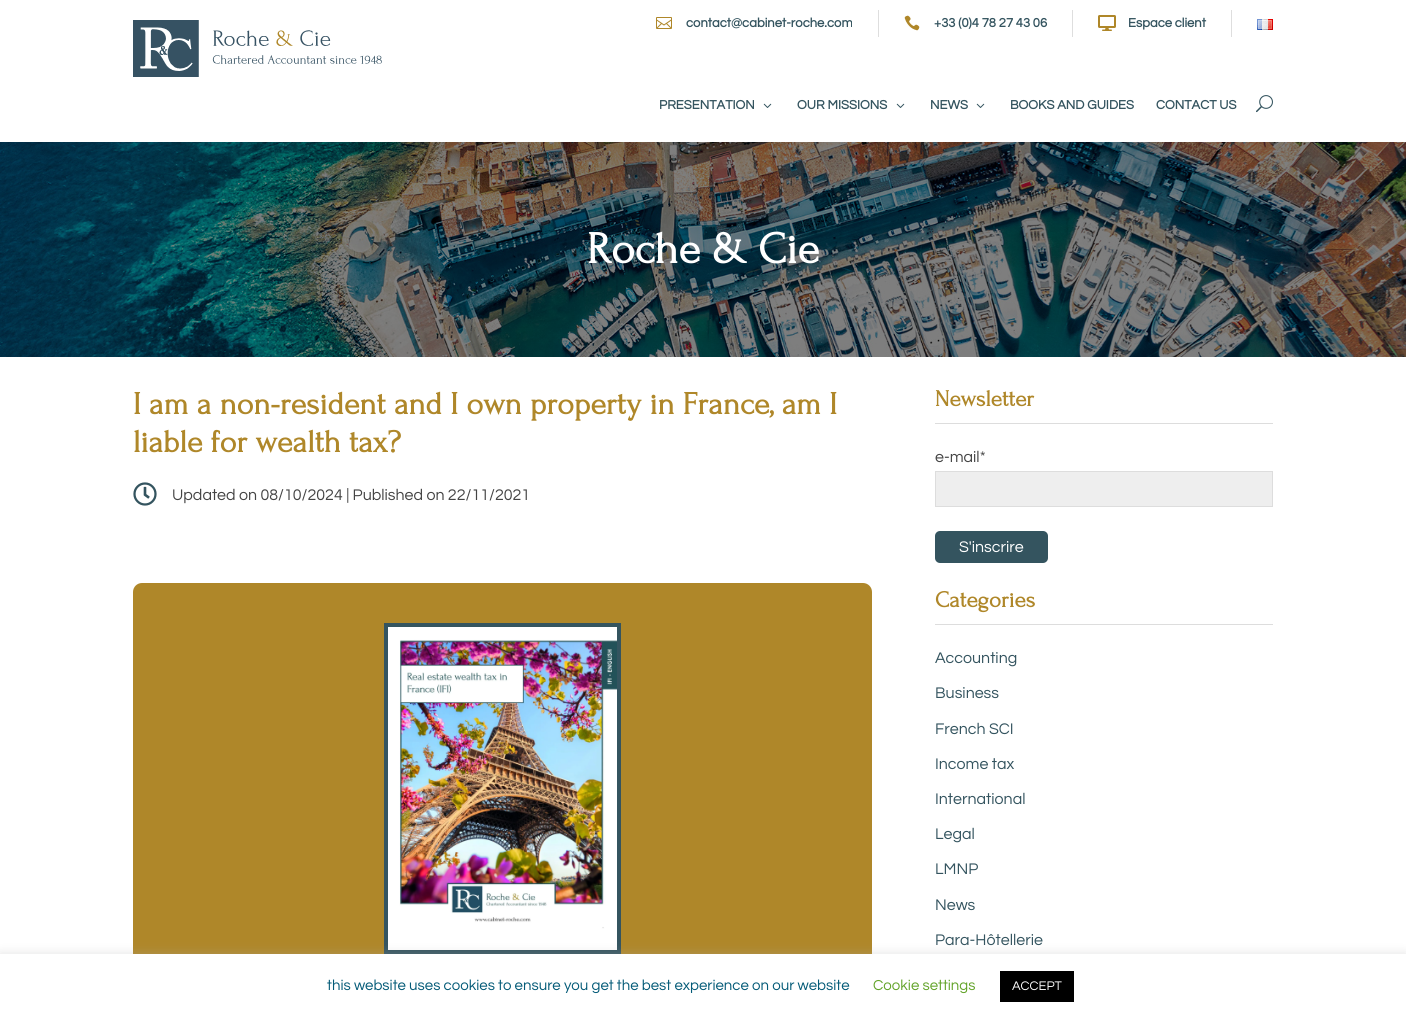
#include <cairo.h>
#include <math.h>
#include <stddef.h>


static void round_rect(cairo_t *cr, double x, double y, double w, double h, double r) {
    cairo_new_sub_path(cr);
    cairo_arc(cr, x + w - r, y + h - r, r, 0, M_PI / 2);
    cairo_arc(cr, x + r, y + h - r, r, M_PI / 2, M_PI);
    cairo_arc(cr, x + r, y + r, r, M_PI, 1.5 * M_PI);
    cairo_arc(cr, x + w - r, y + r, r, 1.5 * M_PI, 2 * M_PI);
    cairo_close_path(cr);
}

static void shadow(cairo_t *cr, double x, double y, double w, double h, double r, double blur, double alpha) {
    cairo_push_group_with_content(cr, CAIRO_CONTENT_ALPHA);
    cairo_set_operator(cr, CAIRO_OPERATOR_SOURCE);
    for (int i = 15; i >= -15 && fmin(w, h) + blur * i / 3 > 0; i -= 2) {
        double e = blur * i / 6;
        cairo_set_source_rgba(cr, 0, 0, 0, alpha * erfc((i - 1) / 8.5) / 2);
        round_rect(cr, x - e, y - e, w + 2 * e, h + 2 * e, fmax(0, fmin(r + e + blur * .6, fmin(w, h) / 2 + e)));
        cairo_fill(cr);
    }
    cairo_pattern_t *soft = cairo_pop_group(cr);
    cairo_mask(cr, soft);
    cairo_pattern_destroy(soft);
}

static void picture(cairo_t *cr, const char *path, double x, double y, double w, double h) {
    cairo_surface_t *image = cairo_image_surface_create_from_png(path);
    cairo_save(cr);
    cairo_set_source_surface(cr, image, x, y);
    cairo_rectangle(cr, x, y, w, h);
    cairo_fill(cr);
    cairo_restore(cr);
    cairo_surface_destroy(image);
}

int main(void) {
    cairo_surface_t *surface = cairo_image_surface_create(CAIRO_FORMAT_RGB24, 1406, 1019);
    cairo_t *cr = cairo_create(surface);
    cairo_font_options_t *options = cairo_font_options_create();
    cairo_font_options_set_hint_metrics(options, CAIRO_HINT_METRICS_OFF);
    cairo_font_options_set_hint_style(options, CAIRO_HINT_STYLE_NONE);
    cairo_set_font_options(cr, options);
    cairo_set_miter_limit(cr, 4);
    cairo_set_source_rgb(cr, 1, 1, 1);
    cairo_paint(cr);
    cairo_set_source_rgb(cr, 0.871, 0.871, 0.871);
    cairo_rectangle(cr, 878, 10, 1, 27);
    cairo_fill(cr);
    picture(cr, "img1.png", 656, 17, 16, 12);
    cairo_select_font_face(cr, "Questrial", CAIRO_FONT_SLANT_NORMAL, CAIRO_FONT_WEIGHT_BOLD);
    cairo_set_font_size(cr, 13);
    cairo_set_source_rgb(cr, 0.204, 0.329, 0.373);
    cairo_move_to(cr, 686, 27);
    cairo_show_text(cr, "contact@cabinet-roche.com");
    cairo_set_source_rgb(cr, 0.871, 0.871, 0.871);
    cairo_rectangle(cr, 1072, 10, 1, 27);
    cairo_fill(cr);
    picture(cr, "img2.png", 904, 15, 16, 16);
    cairo_set_source_rgb(cr, 0.204, 0.329, 0.373);
    cairo_move_to(cr, 934, 27);
    cairo_show_text(cr, "+33 (0)4 78 27 43 06");
    cairo_set_source_rgb(cr, 0.871, 0.871, 0.871);
    cairo_rectangle(cr, 1231, 10, 1, 27);
    cairo_fill(cr);
    picture(cr, "img3.png", 1098, 15, 18, 16);
    cairo_set_source_rgb(cr, 0.204, 0.329, 0.373);
    cairo_move_to(cr, 1128, 27);
    cairo_show_text(cr, "Espace client");
    picture(cr, "img4.png", 1257, 19, 16, 11);
    picture(cr, "img5.png", 133, 20, 249, 57);
    cairo_move_to(cr, 659, 109);
    cairo_show_text(cr, "PRESENTATION");
    picture(cr, "img6.png", 763, 103, 9, 5);
    cairo_move_to(cr, 797, 109);
    cairo_show_text(cr, "OUR MISSIONS");
    picture(cr, "img6.png", 896, 103, 9, 5);
    cairo_move_to(cr, 930, 109);
    cairo_show_text(cr, "NEWS");
    picture(cr, "img6.png", 976, 103, 9, 5);
    cairo_move_to(cr, 1010, 109);
    cairo_show_text(cr, "BOOKS AND GUIDES");
    cairo_move_to(cr, 1156, 109);
    cairo_show_text(cr, "CONTACT US");
    picture(cr, "img7.png", 1256, 95, 17, 18);
    picture(cr, "img8.png", 0, 142, 1406, 215);
    cairo_select_font_face(cr, "Forum", CAIRO_FONT_SLANT_NORMAL, CAIRO_FONT_WEIGHT_BOLD);
    cairo_set_font_size(cr, 45);
    cairo_set_source_rgb(cr, 1, 1, 1);
    cairo_move_to(cr, 587, 263);
    cairo_show_text(cr, "Roche & Cie");
    cairo_set_font_size(cr, 32);
    cairo_set_source_rgb(cr, 0.686, 0.529, 0.161);
    cairo_move_to(cr, 133, 414);
    cairo_show_text(cr, "I am a non-resident and I own property in France, am I");
    cairo_move_to(cr, 133, 452);
    cairo_show_text(cr, "liable for wealth tax?");
    picture(cr, "img9.png", 133, 482, 24, 24);
    cairo_select_font_face(cr, "Questrial", CAIRO_FONT_SLANT_NORMAL, CAIRO_FONT_WEIGHT_NORMAL);
    cairo_set_font_size(cr, 16);
    cairo_set_source_rgb(cr, 0.267, 0.267, 0.267);
    cairo_move_to(cr, 172, 500);
    cairo_show_text(cr, "Updated on 08/10/2024 | Published on 22/11/2021");
    cairo_set_source_rgb(cr, 0.686, 0.529, 0.161);
    round_rect(cr, 133, 583, 739, 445, 9);
    cairo_fill(cr);
    cairo_rectangle(cr, 386, 625, 233, 327);
    cairo_set_source_rgb(cr, 0.204, 0.329, 0.373);
    cairo_set_line_width(cr, 4);
    cairo_stroke(cr);
    picture(cr, "img10.png", 388, 627, 229, 323);
    cairo_set_source_rgb(cr, 0.867, 0.867, 0.867);
    cairo_rectangle(cr, 935, 423, 338, 1);
    cairo_fill(cr);
    cairo_select_font_face(cr, "Forum", CAIRO_FONT_SLANT_NORMAL, CAIRO_FONT_WEIGHT_BOLD);
    cairo_set_font_size(cr, 23);
    cairo_set_source_rgb(cr, 0.686, 0.529, 0.161);
    cairo_move_to(cr, 935, 406);
    cairo_show_text(cr, "Newsletter");
    cairo_select_font_face(cr, "Questrial", CAIRO_FONT_SLANT_NORMAL, CAIRO_FONT_WEIGHT_NORMAL);
    cairo_set_font_size(cr, 16);
    cairo_set_source_rgb(cr, 0.267, 0.267, 0.267);
    cairo_move_to(cr, 935, 462);
    cairo_show_text(cr, "e-mail*");
    cairo_set_source_rgb(cr, 0.933, 0.933, 0.933);
    cairo_rectangle(cr, 935.5, 471.5, 337, 35);
    cairo_fill_preserve(cr);
    cairo_set_source_rgb(cr, 0.867, 0.867, 0.867);
    cairo_set_line_width(cr, 1);
    cairo_stroke(cr);
    cairo_set_source_rgb(cr, 0.204, 0.329, 0.373);
    round_rect(cr, 935, 531, 113, 32, 5);
    cairo_fill(cr);
    cairo_set_source_rgb(cr, 1, 1, 1);
    cairo_move_to(cr, 959, 552);
    cairo_show_text(cr, "S'inscrire");
    cairo_set_source_rgb(cr, 0.867, 0.867, 0.867);
    cairo_rectangle(cr, 935, 624, 338, 1);
    cairo_fill(cr);
    cairo_select_font_face(cr, "Forum", CAIRO_FONT_SLANT_NORMAL, CAIRO_FONT_WEIGHT_BOLD);
    cairo_set_font_size(cr, 23);
    cairo_set_source_rgb(cr, 0.686, 0.529, 0.161);
    cairo_move_to(cr, 935, 607);
    cairo_show_text(cr, "Categories");
    cairo_select_font_face(cr, "Questrial", CAIRO_FONT_SLANT_NORMAL, CAIRO_FONT_WEIGHT_NORMAL);
    cairo_set_font_size(cr, 16);
    cairo_set_source_rgb(cr, 0.204, 0.329, 0.373);
    cairo_move_to(cr, 935, 663);
    cairo_show_text(cr, "Accounting");
    cairo_move_to(cr, 935, 698);
    cairo_show_text(cr, "Business");
    cairo_move_to(cr, 935, 734);
    cairo_show_text(cr, "French SCI");
    cairo_move_to(cr, 935, 769);
    cairo_show_text(cr, "Income tax");
    cairo_move_to(cr, 935, 804);
    cairo_show_text(cr, "International");
    cairo_move_to(cr, 935, 839);
    cairo_show_text(cr, "Legal");
    cairo_move_to(cr, 935, 874);
    cairo_show_text(cr, "LMNP");
    cairo_move_to(cr, 935, 910);
    cairo_show_text(cr, "News");
    cairo_move_to(cr, 935, 945);
    cairo_show_text(cr, "Para-Hôtellerie");
    cairo_set_source_rgb(cr, 0.675, 0.671, 0.671);
    shadow(cr, 0, 953, 1406, 65, 0, 5, 0.3);
    cairo_set_source_rgb(cr, 1, 1, 1);
    cairo_rectangle(cr, 0, 954, 1406, 65);
    cairo_fill(cr);
    cairo_set_font_size(cr, 15);
    cairo_set_source_rgb(cr, 0.012, 0.353, 0.467);
    cairo_move_to(cr, 327, 990);
    cairo_show_text(cr, "this website uses cookies to ensure you get the best experience on our website");
    cairo_set_source_rgb(cr, 0.384, 0.639, 0.161);
    cairo_move_to(cr, 873, 990);
    cairo_show_text(cr, "Cookie settings");
    cairo_set_source_rgb(cr, 0, 0, 0);
    cairo_rectangle(cr, 1000, 971, 74, 31);
    cairo_fill(cr);
    cairo_set_font_size(cr, 13);
    cairo_set_source_rgb(cr, 1, 1, 1);
    cairo_move_to(cr, 1012, 990);
    cairo_show_text(cr, "ACCEPT");
    cairo_surface_write_to_png(surface, "page.png");
    cairo_font_options_destroy(options);
    cairo_destroy(cr);
    cairo_surface_destroy(surface);
    return 0;
}
